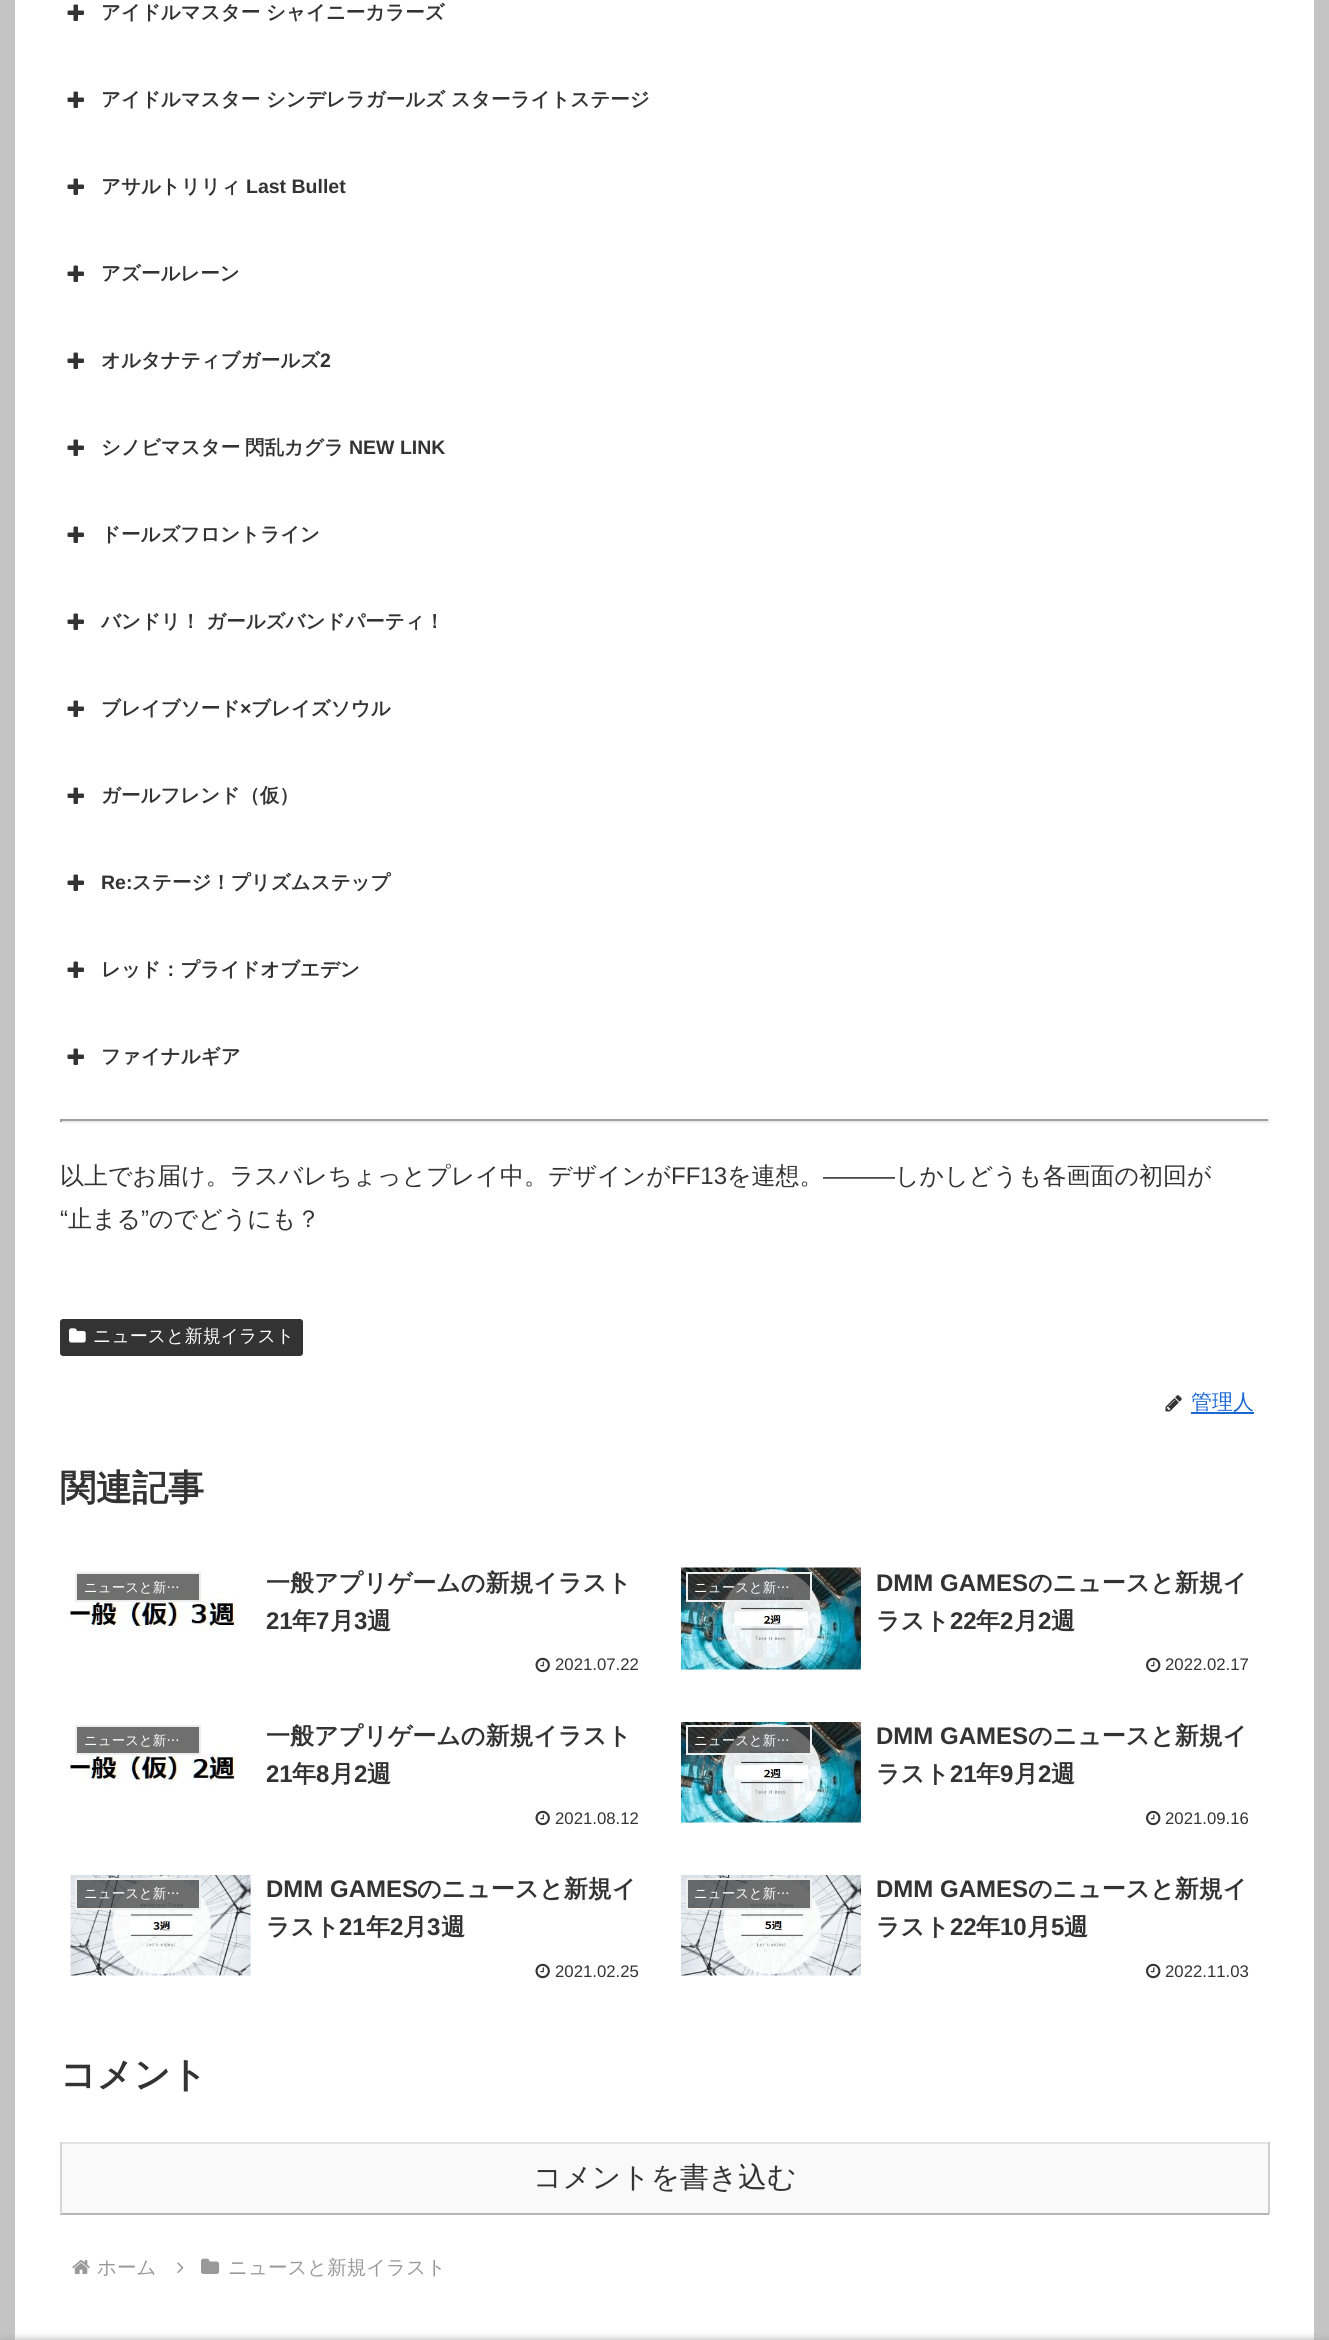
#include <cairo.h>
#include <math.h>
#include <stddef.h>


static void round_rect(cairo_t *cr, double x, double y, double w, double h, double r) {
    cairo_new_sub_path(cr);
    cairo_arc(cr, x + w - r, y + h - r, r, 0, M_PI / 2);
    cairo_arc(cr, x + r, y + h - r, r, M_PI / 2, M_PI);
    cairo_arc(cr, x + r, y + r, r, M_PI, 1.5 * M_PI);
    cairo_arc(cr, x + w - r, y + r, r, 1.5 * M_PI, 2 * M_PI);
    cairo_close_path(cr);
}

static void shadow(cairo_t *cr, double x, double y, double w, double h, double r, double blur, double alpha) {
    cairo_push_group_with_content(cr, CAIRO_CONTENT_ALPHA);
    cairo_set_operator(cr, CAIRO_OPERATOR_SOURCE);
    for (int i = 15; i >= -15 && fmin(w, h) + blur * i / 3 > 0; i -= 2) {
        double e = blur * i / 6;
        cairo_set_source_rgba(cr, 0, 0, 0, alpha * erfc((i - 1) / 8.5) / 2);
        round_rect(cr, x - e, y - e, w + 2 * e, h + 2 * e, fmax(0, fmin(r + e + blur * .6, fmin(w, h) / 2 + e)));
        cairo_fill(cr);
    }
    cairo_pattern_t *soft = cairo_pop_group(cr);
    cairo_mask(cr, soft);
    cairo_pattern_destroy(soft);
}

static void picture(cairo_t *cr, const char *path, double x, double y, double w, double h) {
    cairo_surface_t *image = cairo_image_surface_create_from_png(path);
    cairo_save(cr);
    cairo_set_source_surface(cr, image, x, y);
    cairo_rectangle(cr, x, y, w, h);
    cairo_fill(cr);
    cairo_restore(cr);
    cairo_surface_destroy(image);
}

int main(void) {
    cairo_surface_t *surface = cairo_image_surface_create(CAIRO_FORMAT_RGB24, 1329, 2340);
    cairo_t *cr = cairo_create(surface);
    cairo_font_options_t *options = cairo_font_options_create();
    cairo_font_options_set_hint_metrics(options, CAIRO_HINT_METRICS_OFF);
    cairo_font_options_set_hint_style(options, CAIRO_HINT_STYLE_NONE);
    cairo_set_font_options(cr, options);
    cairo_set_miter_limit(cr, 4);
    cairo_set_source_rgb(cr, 0.769, 0.769, 0.769);
    cairo_paint(cr);
    cairo_set_source_rgb(cr, 1, 1, 1);
    cairo_rectangle(cr, 15, 0, 1299, 2340);
    cairo_fill(cr);
    picture(cr, "img1.png", 67, 4, 17, 17);
    cairo_select_font_face(cr, "WenQuanYi Zen Hei", CAIRO_FONT_SLANT_NORMAL, CAIRO_FONT_WEIGHT_BOLD);
    cairo_set_font_size(cr, 19.5);
    cairo_set_source_rgb(cr, 0.2, 0.2, 0.2);
    cairo_move_to(cr, 101, 19);
    cairo_show_text(cr, "アイドルマスター シャイニーカラーズ");
    picture(cr, "img1.png", 67, 91, 17, 17);
    cairo_move_to(cr, 101, 106);
    cairo_show_text(cr, "アイドルマスター シンデレラガールズ スターライトステージ");
    picture(cr, "img1.png", 67, 178, 17, 17);
    cairo_move_to(cr, 101, 193);
    cairo_show_text(cr, "アサルトリリィ");
    cairo_select_font_face(cr, "Liberation Sans", CAIRO_FONT_SLANT_NORMAL, CAIRO_FONT_WEIGHT_BOLD);
    cairo_move_to(cr, 246, 193);
    cairo_show_text(cr, "Last Bullet");
    picture(cr, "img1.png", 67, 265, 17, 17);
    cairo_select_font_face(cr, "WenQuanYi Zen Hei", CAIRO_FONT_SLANT_NORMAL, CAIRO_FONT_WEIGHT_BOLD);
    cairo_move_to(cr, 101, 280);
    cairo_show_text(cr, "アズールレーン");
    picture(cr, "img1.png", 67, 352, 17, 17);
    cairo_move_to(cr, 101, 367);
    cairo_show_text(cr, "オルタナティブガールズ");
    cairo_select_font_face(cr, "Liberation Sans", CAIRO_FONT_SLANT_NORMAL, CAIRO_FONT_WEIGHT_BOLD);
    cairo_move_to(cr, 320, 367);
    cairo_show_text(cr, "2");
    picture(cr, "img1.png", 67, 439, 17, 17);
    cairo_select_font_face(cr, "WenQuanYi Zen Hei", CAIRO_FONT_SLANT_NORMAL, CAIRO_FONT_WEIGHT_BOLD);
    cairo_move_to(cr, 101, 454);
    cairo_show_text(cr, "シノビマスター");
    cairo_move_to(cr, 245, 454);
    cairo_show_text(cr, "閃乱カグラ");
    cairo_select_font_face(cr, "Liberation Sans", CAIRO_FONT_SLANT_NORMAL, CAIRO_FONT_WEIGHT_BOLD);
    cairo_move_to(cr, 349, 454);
    cairo_show_text(cr, "NEW LINK");
    picture(cr, "img1.png", 67, 526, 17, 17);
    cairo_select_font_face(cr, "WenQuanYi Zen Hei", CAIRO_FONT_SLANT_NORMAL, CAIRO_FONT_WEIGHT_BOLD);
    cairo_move_to(cr, 101, 541);
    cairo_show_text(cr, "ドールズフロントライン");
    picture(cr, "img1.png", 67, 613, 17, 17);
    cairo_move_to(cr, 101, 628);
    cairo_show_text(cr, "バンドリ！ ガールズバンドパーティ！");
    picture(cr, "img1.png", 67, 700, 17, 17);
    cairo_move_to(cr, 101, 715);
    cairo_show_text(cr, "ブレイブソード");
    cairo_select_font_face(cr, "Liberation Sans", CAIRO_FONT_SLANT_NORMAL, CAIRO_FONT_WEIGHT_BOLD);
    cairo_move_to(cr, 240, 715);
    cairo_show_text(cr, "×");
    cairo_select_font_face(cr, "WenQuanYi Zen Hei", CAIRO_FONT_SLANT_NORMAL, CAIRO_FONT_WEIGHT_BOLD);
    cairo_move_to(cr, 251, 715);
    cairo_show_text(cr, "ブレイズソウル");
    picture(cr, "img1.png", 67, 787, 17, 17);
    cairo_move_to(cr, 101, 802);
    cairo_show_text(cr, "ガールフレンド（仮）");
    picture(cr, "img1.png", 67, 874, 17, 17);
    cairo_select_font_face(cr, "Liberation Sans", CAIRO_FONT_SLANT_NORMAL, CAIRO_FONT_WEIGHT_BOLD);
    cairo_move_to(cr, 101, 889);
    cairo_show_text(cr, "Re:");
    cairo_select_font_face(cr, "WenQuanYi Zen Hei", CAIRO_FONT_SLANT_NORMAL, CAIRO_FONT_WEIGHT_BOLD);
    cairo_move_to(cr, 132, 889);
    cairo_show_text(cr, "ステージ！プリズムステップ");
    picture(cr, "img1.png", 67, 961, 17, 17);
    cairo_move_to(cr, 101, 976);
    cairo_show_text(cr, "レッド：プライドオブエデン");
    picture(cr, "img1.png", 67, 1048, 17, 17);
    cairo_move_to(cr, 101, 1063);
    cairo_show_text(cr, "ファイナルギア");
    cairo_set_source_rgb(cr, 0.624, 0.624, 0.624);
    cairo_rectangle(cr, 60, 1119, 1209, 2);
    cairo_fill(cr);
    cairo_set_source_rgb(cr, 0.933, 0.933, 0.933);
    cairo_rectangle(cr, 1268, 1119, 2, 3);
    cairo_fill(cr);
    cairo_rectangle(cr, 60, 1121, 1209, 2);
    cairo_fill(cr);
    cairo_set_source_rgb(cr, 0.624, 0.624, 0.624);
    cairo_rectangle(cr, 60, 1119, 2, 3);
    cairo_fill(cr);
    cairo_select_font_face(cr, "WenQuanYi Zen Hei Medium", CAIRO_FONT_SLANT_NORMAL, CAIRO_FONT_WEIGHT_NORMAL);
    cairo_set_font_size(cr, 24);
    cairo_set_source_rgb(cr, 0.2, 0.2, 0.2);
    cairo_move_to(cr, 60, 1184);
    cairo_show_text(cr, "以上でお届け。ラスバレちょっとプレイ中。デザインが");
    cairo_select_font_face(cr, "Liberation Sans", CAIRO_FONT_SLANT_NORMAL, CAIRO_FONT_WEIGHT_NORMAL);
    cairo_move_to(cr, 671, 1184);
    cairo_show_text(cr, "FF13");
    cairo_select_font_face(cr, "WenQuanYi Zen Hei Medium", CAIRO_FONT_SLANT_NORMAL, CAIRO_FONT_WEIGHT_NORMAL);
    cairo_move_to(cr, 727, 1184);
    cairo_show_text(cr, "を連想。");
    cairo_select_font_face(cr, "Liberation Sans", CAIRO_FONT_SLANT_NORMAL, CAIRO_FONT_WEIGHT_NORMAL);
    cairo_move_to(cr, 823, 1184);
    cairo_show_text(cr, "―――");
    cairo_select_font_face(cr, "WenQuanYi Zen Hei Medium", CAIRO_FONT_SLANT_NORMAL, CAIRO_FONT_WEIGHT_NORMAL);
    cairo_move_to(cr, 895, 1184);
    cairo_show_text(cr, "しかしどうも各画面の初回が");
    cairo_select_font_face(cr, "Liberation Sans", CAIRO_FONT_SLANT_NORMAL, CAIRO_FONT_WEIGHT_NORMAL);
    cairo_move_to(cr, 60, 1227);
    cairo_show_text(cr, "“");
    cairo_select_font_face(cr, "WenQuanYi Zen Hei Medium", CAIRO_FONT_SLANT_NORMAL, CAIRO_FONT_WEIGHT_NORMAL);
    cairo_move_to(cr, 68, 1227);
    cairo_show_text(cr, "止まる");
    cairo_select_font_face(cr, "Liberation Sans", CAIRO_FONT_SLANT_NORMAL, CAIRO_FONT_WEIGHT_NORMAL);
    cairo_move_to(cr, 141, 1227);
    cairo_show_text(cr, "”");
    cairo_select_font_face(cr, "WenQuanYi Zen Hei Medium", CAIRO_FONT_SLANT_NORMAL, CAIRO_FONT_WEIGHT_NORMAL);
    cairo_move_to(cr, 149, 1227);
    cairo_show_text(cr, "のでどうにも？");
    round_rect(cr, 60, 1319, 243, 37, 3);
    cairo_fill(cr);
    picture(cr, "img2.png", 69, 1328, 17, 15);
    cairo_set_font_size(cr, 18);
    cairo_set_source_rgb(cr, 1, 1, 1);
    cairo_move_to(cr, 93, 1342);
    cairo_show_text(cr, "ニュースと新規イラスト");
    picture(cr, "img3.png", 1165, 1395, 17, 17);
    cairo_set_source_rgb(cr, 0.098, 0.404, 0.824);
    cairo_rectangle(cr, 1191, 1412, 63, 2);
    cairo_fill(cr);
    cairo_set_font_size(cr, 21);
    cairo_move_to(cr, 1191, 1409);
    cairo_show_text(cr, "管理人");
    cairo_select_font_face(cr, "WenQuanYi Zen Hei", CAIRO_FONT_SLANT_NORMAL, CAIRO_FONT_WEIGHT_BOLD);
    cairo_set_font_size(cr, 36);
    cairo_set_source_rgb(cr, 0.2, 0.2, 0.2);
    cairo_move_to(cr, 60, 1500);
    cairo_show_text(cr, "関連記事");
    picture(cr, "img4.png", 70, 1593, 166, 39);
    cairo_set_source_rgba(cr, 0.2, 0.2, 0.2, 0.7);
    cairo_rectangle(cr, 76, 1573, 124, 28);
    cairo_fill_preserve(cr);
    cairo_set_source_rgb(cr, 0.933, 0.933, 0.933);
    cairo_stroke(cr);
    cairo_select_font_face(cr, "WenQuanYi Zen Hei Medium", CAIRO_FONT_SLANT_NORMAL, CAIRO_FONT_WEIGHT_NORMAL);
    cairo_set_font_size(cr, 13.5);
    cairo_set_source_rgb(cr, 1, 1, 1);
    cairo_move_to(cr, 84, 1592);
    cairo_show_text(cr, "ニュースと新…");
    cairo_select_font_face(cr, "WenQuanYi Zen Hei", CAIRO_FONT_SLANT_NORMAL, CAIRO_FONT_WEIGHT_BOLD);
    cairo_set_font_size(cr, 24);
    cairo_set_source_rgb(cr, 0.2, 0.2, 0.2);
    cairo_move_to(cr, 266, 1591);
    cairo_show_text(cr, "一般アプリゲームの新規イラスト");
    cairo_select_font_face(cr, "Liberation Sans", CAIRO_FONT_SLANT_NORMAL, CAIRO_FONT_WEIGHT_BOLD);
    cairo_move_to(cr, 266, 1629);
    cairo_show_text(cr, "21");
    cairo_select_font_face(cr, "WenQuanYi Zen Hei", CAIRO_FONT_SLANT_NORMAL, CAIRO_FONT_WEIGHT_BOLD);
    cairo_move_to(cr, 292, 1629);
    cairo_show_text(cr, "年");
    cairo_select_font_face(cr, "Liberation Sans", CAIRO_FONT_SLANT_NORMAL, CAIRO_FONT_WEIGHT_BOLD);
    cairo_move_to(cr, 316, 1629);
    cairo_show_text(cr, "7");
    cairo_select_font_face(cr, "WenQuanYi Zen Hei", CAIRO_FONT_SLANT_NORMAL, CAIRO_FONT_WEIGHT_BOLD);
    cairo_move_to(cr, 330, 1629);
    cairo_show_text(cr, "月");
    cairo_select_font_face(cr, "Liberation Sans", CAIRO_FONT_SLANT_NORMAL, CAIRO_FONT_WEIGHT_BOLD);
    cairo_move_to(cr, 354, 1629);
    cairo_show_text(cr, "3");
    cairo_select_font_face(cr, "WenQuanYi Zen Hei", CAIRO_FONT_SLANT_NORMAL, CAIRO_FONT_WEIGHT_BOLD);
    cairo_move_to(cr, 367, 1629);
    cairo_show_text(cr, "週");
    picture(cr, "img5.png", 535, 1657, 15, 16);
    cairo_select_font_face(cr, "Liberation Sans", CAIRO_FONT_SLANT_NORMAL, CAIRO_FONT_WEIGHT_NORMAL);
    cairo_set_font_size(cr, 16.75);
    cairo_move_to(cr, 555, 1670);
    cairo_show_text(cr, "2021.07.22");
    picture(cr, "img6.png", 681, 1567, 180, 103);
    cairo_set_source_rgba(cr, 0.2, 0.2, 0.2, 0.7);
    cairo_rectangle(cr, 687, 1573, 124, 28);
    cairo_fill_preserve(cr);
    cairo_set_source_rgb(cr, 0.933, 0.933, 0.933);
    cairo_stroke(cr);
    cairo_select_font_face(cr, "WenQuanYi Zen Hei Medium", CAIRO_FONT_SLANT_NORMAL, CAIRO_FONT_WEIGHT_NORMAL);
    cairo_set_font_size(cr, 13.5);
    cairo_set_source_rgb(cr, 1, 1, 1);
    cairo_move_to(cr, 694, 1592);
    cairo_show_text(cr, "ニュースと新…");
    cairo_select_font_face(cr, "Liberation Sans", CAIRO_FONT_SLANT_NORMAL, CAIRO_FONT_WEIGHT_BOLD);
    cairo_set_font_size(cr, 24);
    cairo_set_source_rgb(cr, 0.2, 0.2, 0.2);
    cairo_move_to(cr, 876, 1591);
    cairo_show_text(cr, "DMM GAMES");
    cairo_select_font_face(cr, "WenQuanYi Zen Hei", CAIRO_FONT_SLANT_NORMAL, CAIRO_FONT_WEIGHT_BOLD);
    cairo_move_to(cr, 1028, 1591);
    cairo_show_text(cr, "のニュースと新規イ");
    cairo_move_to(cr, 876, 1629);
    cairo_show_text(cr, "ラスト");
    cairo_select_font_face(cr, "Liberation Sans", CAIRO_FONT_SLANT_NORMAL, CAIRO_FONT_WEIGHT_BOLD);
    cairo_move_to(cr, 950, 1629);
    cairo_show_text(cr, "22");
    cairo_select_font_face(cr, "WenQuanYi Zen Hei", CAIRO_FONT_SLANT_NORMAL, CAIRO_FONT_WEIGHT_BOLD);
    cairo_move_to(cr, 976, 1629);
    cairo_show_text(cr, "年");
    cairo_select_font_face(cr, "Liberation Sans", CAIRO_FONT_SLANT_NORMAL, CAIRO_FONT_WEIGHT_BOLD);
    cairo_move_to(cr, 1000, 1629);
    cairo_show_text(cr, "2");
    cairo_select_font_face(cr, "WenQuanYi Zen Hei", CAIRO_FONT_SLANT_NORMAL, CAIRO_FONT_WEIGHT_BOLD);
    cairo_move_to(cr, 1014, 1629);
    cairo_show_text(cr, "月");
    cairo_select_font_face(cr, "Liberation Sans", CAIRO_FONT_SLANT_NORMAL, CAIRO_FONT_WEIGHT_BOLD);
    cairo_move_to(cr, 1038, 1629);
    cairo_show_text(cr, "2");
    cairo_select_font_face(cr, "WenQuanYi Zen Hei", CAIRO_FONT_SLANT_NORMAL, CAIRO_FONT_WEIGHT_BOLD);
    cairo_move_to(cr, 1051, 1629);
    cairo_show_text(cr, "週");
    picture(cr, "img7.png", 1146, 1657, 15, 16);
    cairo_select_font_face(cr, "Liberation Sans", CAIRO_FONT_SLANT_NORMAL, CAIRO_FONT_WEIGHT_NORMAL);
    cairo_set_font_size(cr, 16.75);
    cairo_move_to(cr, 1165, 1670);
    cairo_show_text(cr, "2022.02.17");
    picture(cr, "img8.png", 70, 1747, 166, 38);
    cairo_set_source_rgba(cr, 0.2, 0.2, 0.2, 0.7);
    cairo_rectangle(cr, 76, 1726, 124, 28);
    cairo_fill_preserve(cr);
    cairo_set_source_rgb(cr, 0.933, 0.933, 0.933);
    cairo_stroke(cr);
    cairo_select_font_face(cr, "WenQuanYi Zen Hei Medium", CAIRO_FONT_SLANT_NORMAL, CAIRO_FONT_WEIGHT_NORMAL);
    cairo_set_font_size(cr, 13.5);
    cairo_set_source_rgb(cr, 1, 1, 1);
    cairo_move_to(cr, 84, 1745);
    cairo_show_text(cr, "ニュースと新…");
    cairo_select_font_face(cr, "WenQuanYi Zen Hei", CAIRO_FONT_SLANT_NORMAL, CAIRO_FONT_WEIGHT_BOLD);
    cairo_set_font_size(cr, 24);
    cairo_set_source_rgb(cr, 0.2, 0.2, 0.2);
    cairo_move_to(cr, 266, 1744);
    cairo_show_text(cr, "一般アプリゲームの新規イラスト");
    cairo_select_font_face(cr, "Liberation Sans", CAIRO_FONT_SLANT_NORMAL, CAIRO_FONT_WEIGHT_BOLD);
    cairo_move_to(cr, 266, 1782);
    cairo_show_text(cr, "21");
    cairo_select_font_face(cr, "WenQuanYi Zen Hei", CAIRO_FONT_SLANT_NORMAL, CAIRO_FONT_WEIGHT_BOLD);
    cairo_move_to(cr, 292, 1782);
    cairo_show_text(cr, "年");
    cairo_select_font_face(cr, "Liberation Sans", CAIRO_FONT_SLANT_NORMAL, CAIRO_FONT_WEIGHT_BOLD);
    cairo_move_to(cr, 316, 1782);
    cairo_show_text(cr, "8");
    cairo_select_font_face(cr, "WenQuanYi Zen Hei", CAIRO_FONT_SLANT_NORMAL, CAIRO_FONT_WEIGHT_BOLD);
    cairo_move_to(cr, 330, 1782);
    cairo_show_text(cr, "月");
    cairo_select_font_face(cr, "Liberation Sans", CAIRO_FONT_SLANT_NORMAL, CAIRO_FONT_WEIGHT_BOLD);
    cairo_move_to(cr, 354, 1782);
    cairo_show_text(cr, "2");
    cairo_select_font_face(cr, "WenQuanYi Zen Hei", CAIRO_FONT_SLANT_NORMAL, CAIRO_FONT_WEIGHT_BOLD);
    cairo_move_to(cr, 367, 1782);
    cairo_show_text(cr, "週");
    picture(cr, "img5.png", 535, 1810, 15, 16);
    cairo_select_font_face(cr, "Liberation Sans", CAIRO_FONT_SLANT_NORMAL, CAIRO_FONT_WEIGHT_NORMAL);
    cairo_set_font_size(cr, 16.75);
    cairo_move_to(cr, 555, 1824);
    cairo_show_text(cr, "2021.08.12");
    picture(cr, "img9.png", 681, 1722, 180, 101);
    cairo_set_source_rgba(cr, 0.2, 0.2, 0.2, 0.7);
    cairo_rectangle(cr, 687, 1726, 124, 28);
    cairo_fill_preserve(cr);
    cairo_set_source_rgb(cr, 0.933, 0.933, 0.933);
    cairo_stroke(cr);
    cairo_select_font_face(cr, "WenQuanYi Zen Hei Medium", CAIRO_FONT_SLANT_NORMAL, CAIRO_FONT_WEIGHT_NORMAL);
    cairo_set_font_size(cr, 13.5);
    cairo_set_source_rgb(cr, 1, 1, 1);
    cairo_move_to(cr, 694, 1745);
    cairo_show_text(cr, "ニュースと新…");
    cairo_select_font_face(cr, "Liberation Sans", CAIRO_FONT_SLANT_NORMAL, CAIRO_FONT_WEIGHT_BOLD);
    cairo_set_font_size(cr, 24);
    cairo_set_source_rgb(cr, 0.2, 0.2, 0.2);
    cairo_move_to(cr, 876, 1744);
    cairo_show_text(cr, "DMM GAMES");
    cairo_select_font_face(cr, "WenQuanYi Zen Hei", CAIRO_FONT_SLANT_NORMAL, CAIRO_FONT_WEIGHT_BOLD);
    cairo_move_to(cr, 1028, 1744);
    cairo_show_text(cr, "のニュースと新規イ");
    cairo_move_to(cr, 876, 1782);
    cairo_show_text(cr, "ラスト");
    cairo_select_font_face(cr, "Liberation Sans", CAIRO_FONT_SLANT_NORMAL, CAIRO_FONT_WEIGHT_BOLD);
    cairo_move_to(cr, 950, 1782);
    cairo_show_text(cr, "21");
    cairo_select_font_face(cr, "WenQuanYi Zen Hei", CAIRO_FONT_SLANT_NORMAL, CAIRO_FONT_WEIGHT_BOLD);
    cairo_move_to(cr, 976, 1782);
    cairo_show_text(cr, "年");
    cairo_select_font_face(cr, "Liberation Sans", CAIRO_FONT_SLANT_NORMAL, CAIRO_FONT_WEIGHT_BOLD);
    cairo_move_to(cr, 1000, 1782);
    cairo_show_text(cr, "9");
    cairo_select_font_face(cr, "WenQuanYi Zen Hei", CAIRO_FONT_SLANT_NORMAL, CAIRO_FONT_WEIGHT_BOLD);
    cairo_move_to(cr, 1014, 1782);
    cairo_show_text(cr, "月");
    cairo_select_font_face(cr, "Liberation Sans", CAIRO_FONT_SLANT_NORMAL, CAIRO_FONT_WEIGHT_BOLD);
    cairo_move_to(cr, 1038, 1782);
    cairo_show_text(cr, "2");
    cairo_select_font_face(cr, "WenQuanYi Zen Hei", CAIRO_FONT_SLANT_NORMAL, CAIRO_FONT_WEIGHT_BOLD);
    cairo_move_to(cr, 1051, 1782);
    cairo_show_text(cr, "週");
    picture(cr, "img7.png", 1146, 1810, 15, 16);
    cairo_select_font_face(cr, "Liberation Sans", CAIRO_FONT_SLANT_NORMAL, CAIRO_FONT_WEIGHT_NORMAL);
    cairo_set_font_size(cr, 16.75);
    cairo_move_to(cr, 1165, 1824);
    cairo_show_text(cr, "2021.09.16");
    picture(cr, "img10.png", 70, 1875, 181, 101);
    cairo_set_source_rgba(cr, 0.2, 0.2, 0.2, 0.7);
    cairo_rectangle(cr, 76, 1879, 124, 30);
    cairo_fill_preserve(cr);
    cairo_set_source_rgb(cr, 0.933, 0.933, 0.933);
    cairo_stroke(cr);
    cairo_select_font_face(cr, "WenQuanYi Zen Hei Medium", CAIRO_FONT_SLANT_NORMAL, CAIRO_FONT_WEIGHT_NORMAL);
    cairo_set_font_size(cr, 13.5);
    cairo_set_source_rgb(cr, 1, 1, 1);
    cairo_move_to(cr, 84, 1898);
    cairo_show_text(cr, "ニュースと新…");
    cairo_select_font_face(cr, "Liberation Sans", CAIRO_FONT_SLANT_NORMAL, CAIRO_FONT_WEIGHT_BOLD);
    cairo_set_font_size(cr, 24);
    cairo_set_source_rgb(cr, 0.2, 0.2, 0.2);
    cairo_move_to(cr, 266, 1897);
    cairo_show_text(cr, "DMM GAMES");
    cairo_select_font_face(cr, "WenQuanYi Zen Hei", CAIRO_FONT_SLANT_NORMAL, CAIRO_FONT_WEIGHT_BOLD);
    cairo_move_to(cr, 417, 1897);
    cairo_show_text(cr, "のニュースと新規イ");
    cairo_move_to(cr, 266, 1935);
    cairo_show_text(cr, "ラスト");
    cairo_select_font_face(cr, "Liberation Sans", CAIRO_FONT_SLANT_NORMAL, CAIRO_FONT_WEIGHT_BOLD);
    cairo_move_to(cr, 339, 1935);
    cairo_show_text(cr, "21");
    cairo_select_font_face(cr, "WenQuanYi Zen Hei", CAIRO_FONT_SLANT_NORMAL, CAIRO_FONT_WEIGHT_BOLD);
    cairo_move_to(cr, 366, 1935);
    cairo_show_text(cr, "年");
    cairo_select_font_face(cr, "Liberation Sans", CAIRO_FONT_SLANT_NORMAL, CAIRO_FONT_WEIGHT_BOLD);
    cairo_move_to(cr, 390, 1935);
    cairo_show_text(cr, "2");
    cairo_select_font_face(cr, "WenQuanYi Zen Hei", CAIRO_FONT_SLANT_NORMAL, CAIRO_FONT_WEIGHT_BOLD);
    cairo_move_to(cr, 403, 1935);
    cairo_show_text(cr, "月");
    cairo_select_font_face(cr, "Liberation Sans", CAIRO_FONT_SLANT_NORMAL, CAIRO_FONT_WEIGHT_BOLD);
    cairo_move_to(cr, 427, 1935);
    cairo_show_text(cr, "3");
    cairo_select_font_face(cr, "WenQuanYi Zen Hei", CAIRO_FONT_SLANT_NORMAL, CAIRO_FONT_WEIGHT_BOLD);
    cairo_move_to(cr, 441, 1935);
    cairo_show_text(cr, "週");
    picture(cr, "img5.png", 535, 1963, 15, 16);
    cairo_select_font_face(cr, "Liberation Sans", CAIRO_FONT_SLANT_NORMAL, CAIRO_FONT_WEIGHT_NORMAL);
    cairo_set_font_size(cr, 16.75);
    cairo_move_to(cr, 555, 1977);
    cairo_show_text(cr, "2021.02.25");
    picture(cr, "img11.png", 681, 1875, 180, 101);
    cairo_set_source_rgba(cr, 0.2, 0.2, 0.2, 0.7);
    cairo_rectangle(cr, 687, 1879, 124, 30);
    cairo_fill_preserve(cr);
    cairo_set_source_rgb(cr, 0.933, 0.933, 0.933);
    cairo_stroke(cr);
    cairo_select_font_face(cr, "WenQuanYi Zen Hei Medium", CAIRO_FONT_SLANT_NORMAL, CAIRO_FONT_WEIGHT_NORMAL);
    cairo_set_font_size(cr, 13.5);
    cairo_set_source_rgb(cr, 1, 1, 1);
    cairo_move_to(cr, 694, 1898);
    cairo_show_text(cr, "ニュースと新…");
    cairo_select_font_face(cr, "Liberation Sans", CAIRO_FONT_SLANT_NORMAL, CAIRO_FONT_WEIGHT_BOLD);
    cairo_set_font_size(cr, 24);
    cairo_set_source_rgb(cr, 0.2, 0.2, 0.2);
    cairo_move_to(cr, 876, 1897);
    cairo_show_text(cr, "DMM GAMES");
    cairo_select_font_face(cr, "WenQuanYi Zen Hei", CAIRO_FONT_SLANT_NORMAL, CAIRO_FONT_WEIGHT_BOLD);
    cairo_move_to(cr, 1028, 1897);
    cairo_show_text(cr, "のニュースと新規イ");
    cairo_move_to(cr, 876, 1935);
    cairo_show_text(cr, "ラスト");
    cairo_select_font_face(cr, "Liberation Sans", CAIRO_FONT_SLANT_NORMAL, CAIRO_FONT_WEIGHT_BOLD);
    cairo_move_to(cr, 950, 1935);
    cairo_show_text(cr, "22");
    cairo_select_font_face(cr, "WenQuanYi Zen Hei", CAIRO_FONT_SLANT_NORMAL, CAIRO_FONT_WEIGHT_BOLD);
    cairo_move_to(cr, 976, 1935);
    cairo_show_text(cr, "年");
    cairo_select_font_face(cr, "Liberation Sans", CAIRO_FONT_SLANT_NORMAL, CAIRO_FONT_WEIGHT_BOLD);
    cairo_move_to(cr, 1000, 1935);
    cairo_show_text(cr, "10");
    cairo_select_font_face(cr, "WenQuanYi Zen Hei", CAIRO_FONT_SLANT_NORMAL, CAIRO_FONT_WEIGHT_BOLD);
    cairo_move_to(cr, 1027, 1935);
    cairo_show_text(cr, "月");
    cairo_select_font_face(cr, "Liberation Sans", CAIRO_FONT_SLANT_NORMAL, CAIRO_FONT_WEIGHT_BOLD);
    cairo_move_to(cr, 1051, 1935);
    cairo_show_text(cr, "5");
    cairo_select_font_face(cr, "WenQuanYi Zen Hei", CAIRO_FONT_SLANT_NORMAL, CAIRO_FONT_WEIGHT_BOLD);
    cairo_move_to(cr, 1064, 1935);
    cairo_show_text(cr, "週");
    picture(cr, "img7.png", 1146, 1963, 15, 16);
    cairo_select_font_face(cr, "Liberation Sans", CAIRO_FONT_SLANT_NORMAL, CAIRO_FONT_WEIGHT_NORMAL);
    cairo_set_font_size(cr, 16.75);
    cairo_move_to(cr, 1165, 1977);
    cairo_show_text(cr, "2022.11.03");
    cairo_select_font_face(cr, "WenQuanYi Zen Hei", CAIRO_FONT_SLANT_NORMAL, CAIRO_FONT_WEIGHT_BOLD);
    cairo_set_font_size(cr, 36);
    cairo_move_to(cr, 60, 2087);
    cairo_show_text(cr, "コメント");
    cairo_set_source_rgb(cr, 0.976, 0.976, 0.976);
    cairo_rectangle(cr, 62, 2144, 1206, 69);
    cairo_fill(cr);
    cairo_set_source_rgb(cr, 0.89, 0.89, 0.89);
    cairo_rectangle(cr, 60, 2142, 1209, 2);
    cairo_fill(cr);
    cairo_set_source_rgb(cr, 0.808, 0.808, 0.808);
    cairo_rectangle(cr, 1268, 2142, 2, 72);
    cairo_fill(cr);
    cairo_set_source_rgb(cr, 0.706, 0.706, 0.706);
    cairo_rectangle(cr, 60, 2213, 1209, 2);
    cairo_fill(cr);
    cairo_set_source_rgb(cr, 0.839, 0.839, 0.839);
    cairo_rectangle(cr, 60, 2142, 2, 72);
    cairo_fill(cr);
    cairo_select_font_face(cr, "WenQuanYi Zen Hei Medium", CAIRO_FONT_SLANT_NORMAL, CAIRO_FONT_WEIGHT_NORMAL);
    cairo_set_font_size(cr, 28.75);
    cairo_set_source_rgb(cr, 0.2, 0.2, 0.2);
    cairo_move_to(cr, 533, 2187);
    cairo_show_text(cr, "コメントを書き込む");
    picture(cr, "img12.png", 72, 2260, 18, 14);
    cairo_set_font_size(cr, 19.5);
    cairo_set_source_rgb(cr, 0.6, 0.6, 0.6);
    cairo_move_to(cr, 97, 2274);
    cairo_show_text(cr, "ホーム");
    picture(cr, "img13.png", 177, 2262, 7, 11);
    picture(cr, "img14.png", 201, 2258, 19, 16);
    cairo_move_to(cr, 228, 2274);
    cairo_show_text(cr, "ニュースと新規イラスト");
    cairo_set_source_rgb(cr, 0.663, 0.663, 0.663);
    shadow(cr, 0, 2340, 1329, 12, 0, 4, 1);
    cairo_surface_write_to_png(surface, "page.png");
    cairo_font_options_destroy(options);
    cairo_destroy(cr);
    cairo_surface_destroy(surface);
    return 0;
}
